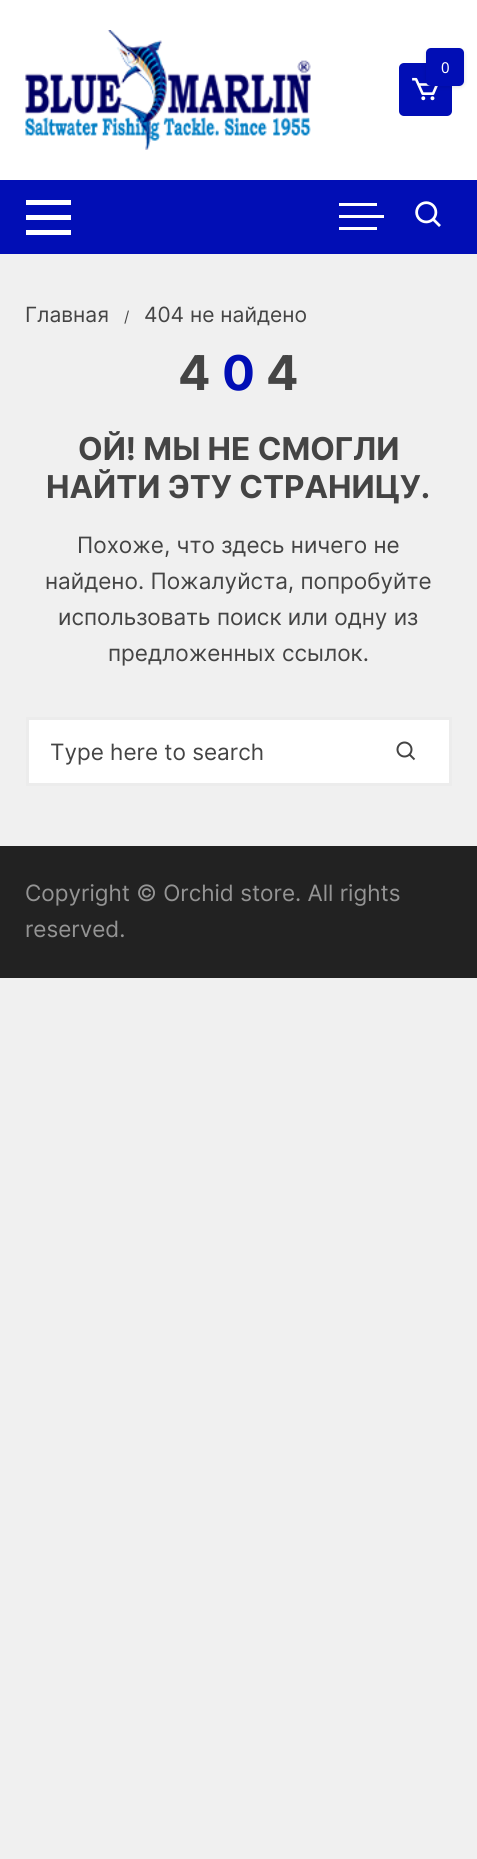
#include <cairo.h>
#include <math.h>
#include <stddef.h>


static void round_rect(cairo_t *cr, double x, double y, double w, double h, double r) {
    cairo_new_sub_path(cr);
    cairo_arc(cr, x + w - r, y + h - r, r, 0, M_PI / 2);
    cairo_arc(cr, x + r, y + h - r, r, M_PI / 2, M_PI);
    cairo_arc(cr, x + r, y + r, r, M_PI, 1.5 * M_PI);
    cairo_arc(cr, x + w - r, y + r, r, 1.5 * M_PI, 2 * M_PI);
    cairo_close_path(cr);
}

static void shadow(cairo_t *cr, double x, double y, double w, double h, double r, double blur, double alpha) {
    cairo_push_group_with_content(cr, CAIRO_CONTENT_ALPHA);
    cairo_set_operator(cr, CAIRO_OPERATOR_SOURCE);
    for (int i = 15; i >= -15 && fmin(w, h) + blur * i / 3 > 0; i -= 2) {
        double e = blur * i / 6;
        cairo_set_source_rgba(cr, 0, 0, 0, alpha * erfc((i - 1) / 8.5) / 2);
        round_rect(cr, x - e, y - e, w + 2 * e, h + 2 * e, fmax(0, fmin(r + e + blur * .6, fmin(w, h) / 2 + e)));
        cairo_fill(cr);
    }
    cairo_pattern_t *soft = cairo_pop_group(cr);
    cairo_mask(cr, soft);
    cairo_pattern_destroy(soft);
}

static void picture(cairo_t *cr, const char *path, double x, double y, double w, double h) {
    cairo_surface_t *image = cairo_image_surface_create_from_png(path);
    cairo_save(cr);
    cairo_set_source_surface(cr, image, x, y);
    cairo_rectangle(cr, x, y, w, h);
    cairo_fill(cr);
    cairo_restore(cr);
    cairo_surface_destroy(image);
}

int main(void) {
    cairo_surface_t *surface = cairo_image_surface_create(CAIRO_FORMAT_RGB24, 477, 1859);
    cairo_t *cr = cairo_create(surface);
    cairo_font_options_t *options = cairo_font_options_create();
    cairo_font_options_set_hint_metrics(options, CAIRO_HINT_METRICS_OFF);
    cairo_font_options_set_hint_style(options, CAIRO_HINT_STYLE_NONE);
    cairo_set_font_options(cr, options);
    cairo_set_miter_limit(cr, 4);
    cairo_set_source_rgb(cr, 0.941, 0.941, 0.941);
    cairo_paint(cr);
    cairo_set_source_rgb(cr, 1, 1, 1);
    cairo_rectangle(cr, 0, 0, 477, 180);
    cairo_fill(cr);
    picture(cr, "img1.png", 25, 30, 286, 120);
    cairo_set_source_rgb(cr, 0.004, 0.055, 0.71);
    round_rect(cr, 399, 63, 53, 53, 5);
    cairo_fill(cr);
    picture(cr, "img2.png", 412, 77, 26, 24);
    cairo_set_source_rgb(cr, 0, 0, 0);
    shadow(cr, 426, 50, 38, 37, 5, 2, 0.13);
    cairo_set_source_rgb(cr, 0.004, 0.055, 0.71);
    round_rect(cr, 426, 48, 38, 38, 5);
    cairo_fill(cr);
    cairo_select_font_face(cr, "Noto Sans", CAIRO_FONT_SLANT_NORMAL, CAIRO_FONT_WEIGHT_NORMAL);
    cairo_set_font_size(cr, 15);
    cairo_set_source_rgb(cr, 1, 1, 1);
    cairo_move_to(cr, 441, 73);
    cairo_show_text(cr, "0");
    cairo_set_source_rgb(cr, 0.004, 0.055, 0.71);
    cairo_rectangle(cr, 0, 180, 477, 74);
    cairo_fill(cr);
    cairo_set_source_rgb(cr, 1, 1, 1);
    cairo_rectangle(cr, 26, 200, 45, 5);
    cairo_fill(cr);
    cairo_rectangle(cr, 26, 215, 45, 5);
    cairo_fill(cr);
    cairo_rectangle(cr, 26, 230, 45, 5);
    cairo_fill(cr);
    cairo_rectangle(cr, 339, 203, 38, 3);
    cairo_fill(cr);
    cairo_rectangle(cr, 339, 215, 45, 3);
    cairo_fill(cr);
    cairo_rectangle(cr, 339, 227, 38, 3);
    cairo_fill(cr);
    picture(cr, "img3.png", 415, 201, 26, 26);
    cairo_select_font_face(cr, "Inter", CAIRO_FONT_SLANT_NORMAL, CAIRO_FONT_WEIGHT_NORMAL);
    cairo_set_font_size(cr, 21);
    cairo_set_source_rgb(cr, 0.267, 0.267, 0.267);
    cairo_move_to(cr, 25, 322);
    cairo_show_text(cr, "Главная");
    cairo_set_font_size(cr, 15);
    cairo_move_to(cr, 124, 322);
    cairo_show_text(cr, "/");
    cairo_set_font_size(cr, 21);
    cairo_move_to(cr, 144, 322);
    cairo_show_text(cr, "404 не найдено");
    cairo_select_font_face(cr, "Inter", CAIRO_FONT_SLANT_NORMAL, CAIRO_FONT_WEIGHT_BOLD);
    cairo_set_font_size(cr, 48);
    cairo_move_to(cr, 178, 390);
    cairo_show_text(cr, "4");
    cairo_set_source_rgb(cr, 0.004, 0.055, 0.71);
    cairo_move_to(cr, 222, 390);
    cairo_show_text(cr, "0");
    cairo_set_source_rgb(cr, 0.267, 0.267, 0.267);
    cairo_move_to(cr, 266, 390);
    cairo_show_text(cr, "4");
    cairo_set_font_size(cr, 31.5);
    cairo_move_to(cr, 78, 460);
    cairo_show_text(cr, "ОЙ! МЫ НЕ СМОГЛИ");
    cairo_move_to(cr, 46, 498);
    cairo_show_text(cr, "НАЙТИ ЭТУ СТРАНИЦУ.");
    cairo_select_font_face(cr, "Inter", CAIRO_FONT_SLANT_NORMAL, CAIRO_FONT_WEIGHT_NORMAL);
    cairo_set_font_size(cr, 22.5);
    cairo_move_to(cr, 77, 553);
    cairo_show_text(cr, "Похоже, что здесь ничего не");
    cairo_move_to(cr, 45, 589);
    cairo_show_text(cr, "найдено. Пожалуйста, попробуйте");
    cairo_move_to(cr, 58, 625);
    cairo_show_text(cr, "использовать поиск или одну из");
    cairo_move_to(cr, 108, 661);
    cairo_show_text(cr, "предложенных ссылок.");
    cairo_set_source_rgb(cr, 1, 1, 1);
    cairo_rectangle(cr, 27.5, 718.5, 423, 66);
    cairo_fill_preserve(cr);
    cairo_set_source_rgb(cr, 0.925, 0.925, 0.925);
    cairo_set_line_width(cr, 3);
    cairo_stroke(cr);
    cairo_set_source_rgb(cr, 0.267, 0.267, 0.267);
    cairo_move_to(cr, 50, 760);
    cairo_show_text(cr, "Type here to search");
    picture(cr, "img4.png", 396, 741, 20, 20);
    cairo_set_source_rgb(cr, 0.133, 0.133, 0.133);
    cairo_rectangle(cr, 0, 846, 477, 132);
    cairo_fill(cr);
    cairo_set_source_rgb(cr, 0.58, 0.58, 0.58);
    cairo_move_to(cr, 25, 901);
    cairo_show_text(cr, "Copyright © Orchid store. All rights");
    cairo_move_to(cr, 25, 937);
    cairo_show_text(cr, "reserved.");
    cairo_surface_write_to_png(surface, "page.png");
    cairo_font_options_destroy(options);
    cairo_destroy(cr);
    cairo_surface_destroy(surface);
    return 0;
}
